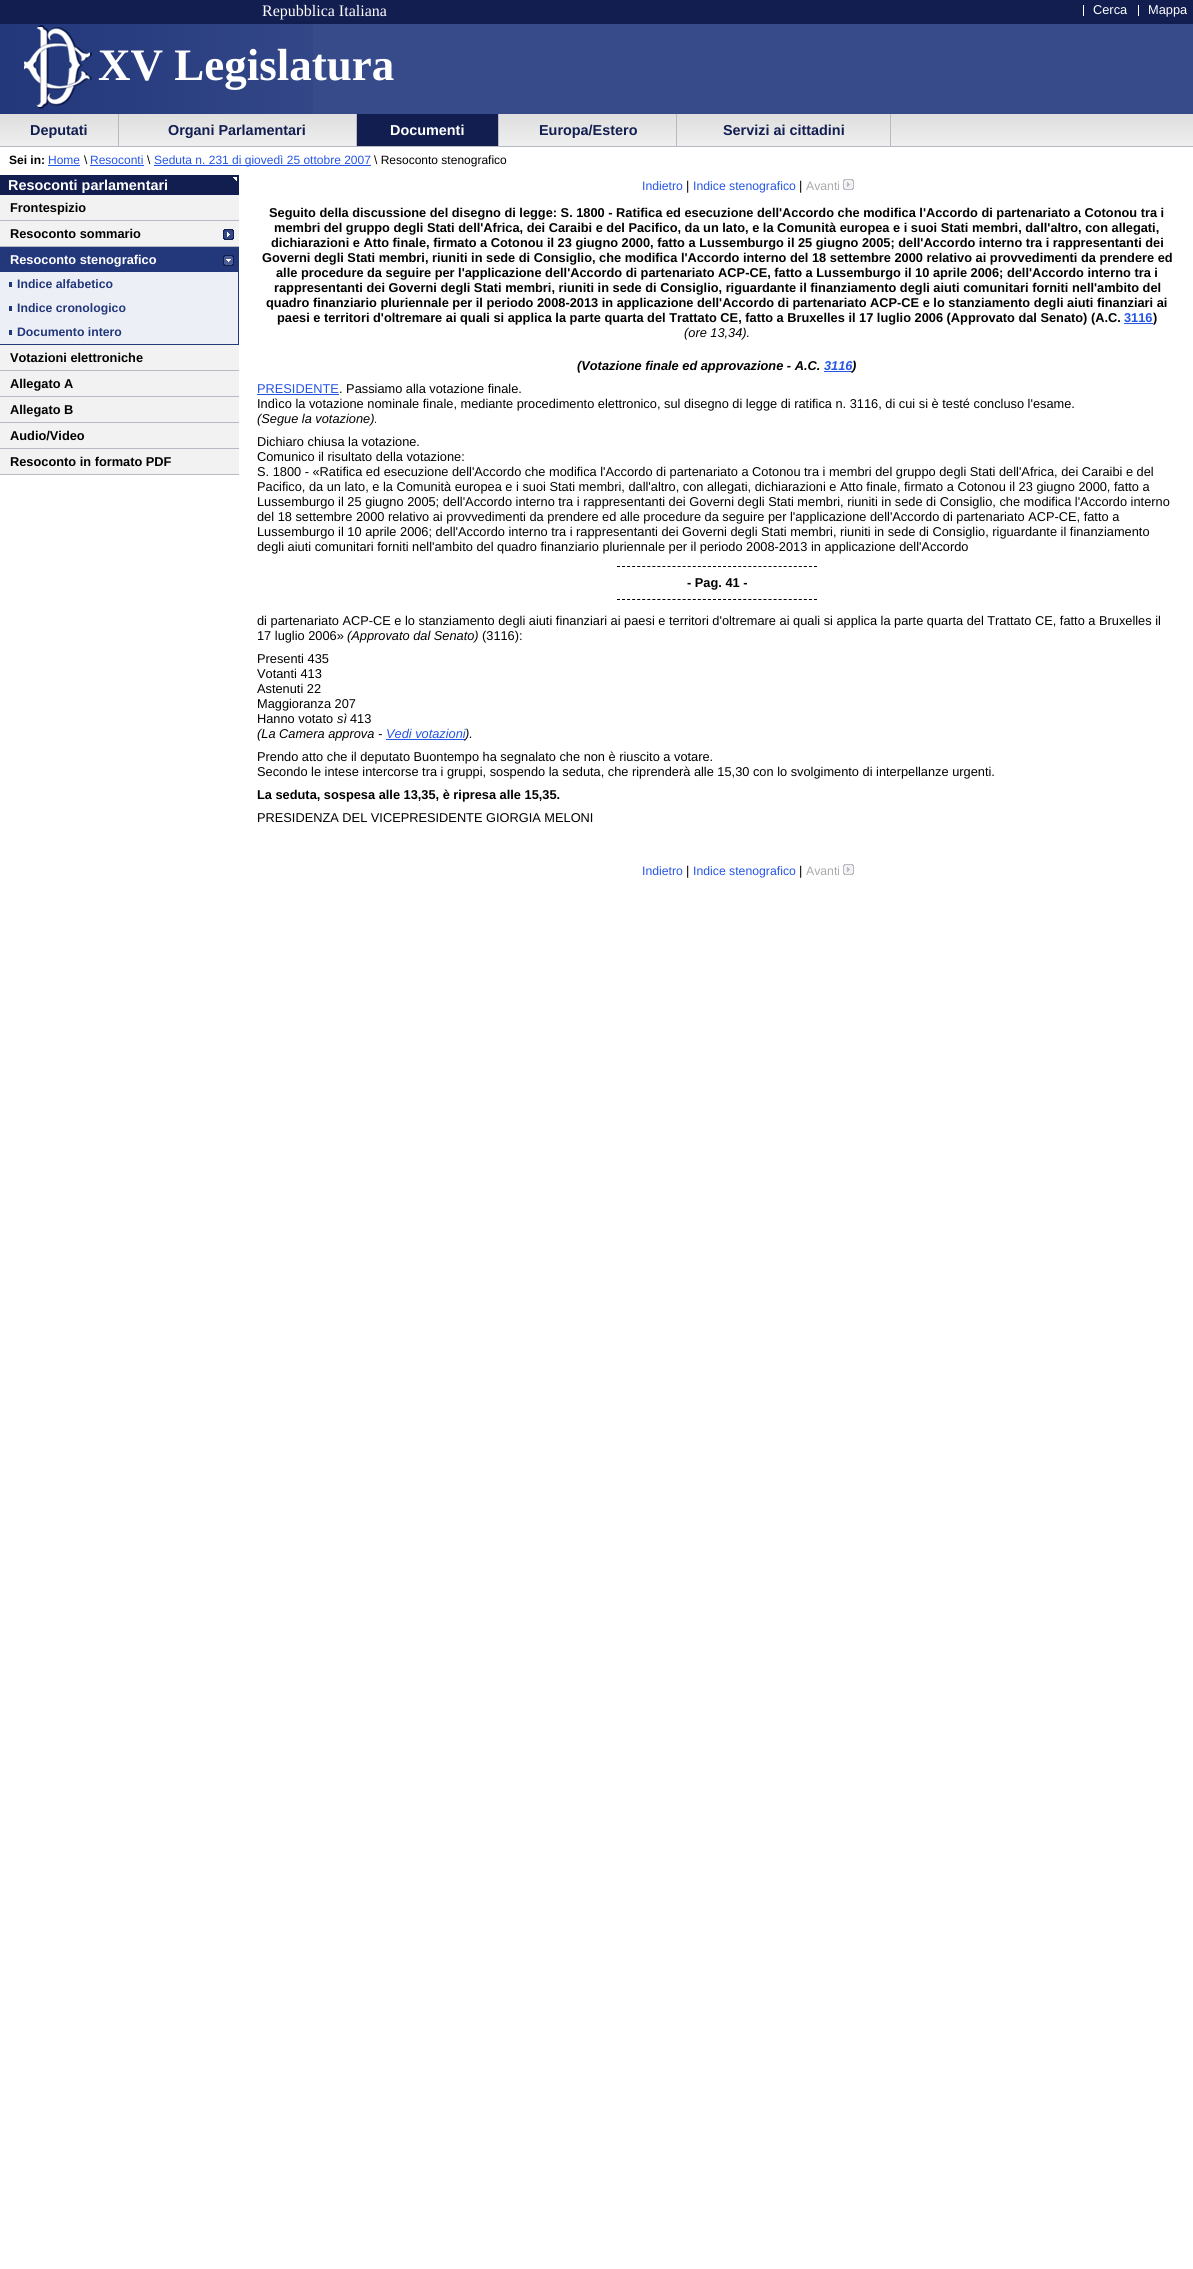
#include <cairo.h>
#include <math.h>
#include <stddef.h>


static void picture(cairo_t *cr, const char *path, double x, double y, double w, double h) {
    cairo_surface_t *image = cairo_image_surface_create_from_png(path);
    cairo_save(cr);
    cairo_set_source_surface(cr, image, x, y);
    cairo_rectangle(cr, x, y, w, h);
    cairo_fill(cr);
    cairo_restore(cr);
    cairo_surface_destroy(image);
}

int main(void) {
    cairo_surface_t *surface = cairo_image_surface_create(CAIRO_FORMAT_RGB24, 1193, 2269);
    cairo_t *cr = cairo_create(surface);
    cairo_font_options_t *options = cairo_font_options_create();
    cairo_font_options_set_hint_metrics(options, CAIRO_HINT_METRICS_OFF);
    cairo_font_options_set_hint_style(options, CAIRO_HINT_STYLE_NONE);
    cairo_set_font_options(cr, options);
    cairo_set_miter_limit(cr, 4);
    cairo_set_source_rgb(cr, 1, 1, 1);
    cairo_paint(cr);
    cairo_set_source_rgb(cr, 0.216, 0.29, 0.541);
    cairo_rectangle(cr, 313, 24, 880, 90);
    cairo_fill(cr);
    picture(cr, "img1.png", 0, 24, 313, 90);
    cairo_set_source_rgb(cr, 0.071, 0.118, 0.314);
    cairo_rectangle(cr, 0, 0, 1193, 24);
    cairo_fill(cr);
    cairo_select_font_face(cr, "Liberation Serif", CAIRO_FONT_SLANT_NORMAL, CAIRO_FONT_WEIGHT_NORMAL);
    cairo_set_font_size(cr, 16);
    cairo_set_source_rgb(cr, 1, 1, 1);
    cairo_move_to(cr, 262, 16);
    cairo_show_text(cr, "Repubblica Italiana");
    cairo_select_font_face(cr, "Liberation Sans", CAIRO_FONT_SLANT_NORMAL, CAIRO_FONT_WEIGHT_NORMAL);
    cairo_set_font_size(cr, 12.8);
    cairo_move_to(cr, 1093, 14);
    cairo_show_text(cr, "Cerca");
    cairo_rectangle(cr, 1083, 5, 1, 11);
    cairo_fill(cr);
    cairo_move_to(cr, 1148, 14);
    cairo_show_text(cr, "Mappa");
    cairo_rectangle(cr, 1138, 5, 1, 11);
    cairo_fill(cr);
    picture(cr, "img2.png", 24, 25, 68, 84);
    cairo_select_font_face(cr, "Liberation Serif", CAIRO_FONT_SLANT_NORMAL, CAIRO_FONT_WEIGHT_BOLD);
    cairo_set_font_size(cr, 45);
    cairo_move_to(cr, 98, 80);
    cairo_show_text(cr, "XV Legislatura");
    picture(cr, "img3.png", 0, 114, 1193, 32);
    cairo_set_source_rgb(cr, 0.718, 0.729, 0.765);
    cairo_rectangle(cr, 0, 146, 1193, 1);
    cairo_fill(cr);
    cairo_rectangle(cr, 118, 114, 1, 32);
    cairo_fill(cr);
    cairo_select_font_face(cr, "Liberation Sans", CAIRO_FONT_SLANT_NORMAL, CAIRO_FONT_WEIGHT_BOLD);
    cairo_set_font_size(cr, 14.4);
    cairo_set_source_rgb(cr, 0.071, 0.118, 0.314);
    cairo_move_to(cr, 30, 135);
    cairo_show_text(cr, "Deputati");
    cairo_set_source_rgb(cr, 0.718, 0.729, 0.765);
    cairo_rectangle(cr, 356, 114, 1, 32);
    cairo_fill(cr);
    cairo_set_source_rgb(cr, 0.071, 0.118, 0.314);
    cairo_move_to(cr, 168, 135);
    cairo_show_text(cr, "Organi Parlamentari");
    cairo_rectangle(cr, 357, 114, 141, 32);
    cairo_fill(cr);
    cairo_set_source_rgb(cr, 0.718, 0.729, 0.765);
    cairo_rectangle(cr, 498, 114, 1, 32);
    cairo_fill(cr);
    cairo_set_source_rgb(cr, 1, 1, 1);
    cairo_move_to(cr, 390, 135);
    cairo_show_text(cr, "Documenti");
    cairo_set_source_rgb(cr, 0.718, 0.729, 0.765);
    cairo_rectangle(cr, 676, 114, 1, 32);
    cairo_fill(cr);
    cairo_set_source_rgb(cr, 0.071, 0.118, 0.314);
    cairo_move_to(cr, 539, 135);
    cairo_show_text(cr, "Europa/Estero");
    cairo_set_source_rgb(cr, 0.718, 0.729, 0.765);
    cairo_rectangle(cr, 890, 114, 1, 32);
    cairo_fill(cr);
    cairo_set_source_rgb(cr, 0.071, 0.118, 0.314);
    cairo_move_to(cr, 723, 135);
    cairo_show_text(cr, "Servizi ai cittadini");
    cairo_set_font_size(cr, 12);
    cairo_set_source_rgb(cr, 0, 0, 0);
    cairo_move_to(cr, 9, 164);
    cairo_show_text(cr, "Sei in:");
    cairo_select_font_face(cr, "Liberation Sans", CAIRO_FONT_SLANT_NORMAL, CAIRO_FONT_WEIGHT_NORMAL);
    cairo_set_source_rgb(cr, 0.145, 0.333, 0.898);
    cairo_move_to(cr, 48, 164);
    cairo_show_text(cr, "Home");
    cairo_rectangle(cr, 48, 165, 32, 1);
    cairo_fill(cr);
    cairo_set_source_rgb(cr, 0, 0, 0);
    cairo_move_to(cr, 84, 164);
    cairo_show_text(cr, "\\");
    cairo_set_source_rgb(cr, 0.145, 0.333, 0.898);
    cairo_move_to(cr, 90, 164);
    cairo_show_text(cr, "Resoconti");
    cairo_rectangle(cr, 90, 165, 54, 1);
    cairo_fill(cr);
    cairo_set_source_rgb(cr, 0, 0, 0);
    cairo_move_to(cr, 147, 164);
    cairo_show_text(cr, "\\");
    cairo_set_source_rgb(cr, 0.145, 0.333, 0.898);
    cairo_rectangle(cr, 154, 165, 217, 1);
    cairo_fill(cr);
    cairo_move_to(cr, 154, 164);
    cairo_show_text(cr, "Seduta n. 231 di giovedì 25 ottobre 2007");
    cairo_set_source_rgb(cr, 0, 0, 0);
    cairo_move_to(cr, 374, 164);
    cairo_show_text(cr, "\\ Resoconto stenografico");
    cairo_set_font_size(cr, 12.25);
    cairo_set_source_rgb(cr, 0.145, 0.333, 0.898);
    cairo_move_to(cr, 642, 190);
    cairo_show_text(cr, "Indietro");
    cairo_set_font_size(cr, 12.8);
    cairo_set_source_rgb(cr, 0, 0, 0);
    cairo_move_to(cr, 686, 190);
    cairo_show_text(cr, "|");
    cairo_set_font_size(cr, 12.25);
    cairo_set_source_rgb(cr, 0.145, 0.333, 0.898);
    cairo_move_to(cr, 693, 190);
    cairo_show_text(cr, "Indice stenografico");
    cairo_set_font_size(cr, 12.8);
    cairo_set_source_rgb(cr, 0, 0, 0);
    cairo_move_to(cr, 799, 190);
    cairo_show_text(cr, "|");
    cairo_set_font_size(cr, 12.25);
    cairo_set_source_rgb(cr, 0.667, 0.667, 0.667);
    cairo_move_to(cr, 806, 190);
    cairo_show_text(cr, "Avanti");
    picture(cr, "img4.png", 843, 179, 11, 11);
    cairo_select_font_face(cr, "Liberation Sans", CAIRO_FONT_SLANT_NORMAL, CAIRO_FONT_WEIGHT_BOLD);
    cairo_set_font_size(cr, 12.8);
    cairo_set_source_rgb(cr, 0, 0, 0);
    cairo_move_to(cr, 269, 217);
    cairo_show_text(cr, "Seguito della discussione del disegno di legge: S. 1800 - Ratifica ed esecuzione dell'Accordo che modifica l'Accordo di partenariato a Cotonou tra i");
    cairo_move_to(cr, 274, 232);
    cairo_show_text(cr, "membri del gruppo degli Stati dell'Africa, dei Caraibi e del Pacifico, da un lato, e la Comunità europea e i suoi Stati membri, dall'altro, con allegati,");
    cairo_move_to(cr, 271, 247);
    cairo_show_text(cr, "dichiarazioni e Atto finale, firmato a Cotonou il 23 giugno 2000, fatto a Lussemburgo il 25 giugno 2005; dell'Accordo interno tra i rappresentanti dei");
    cairo_move_to(cr, 262, 262);
    cairo_show_text(cr, "Governi degli Stati membri, riuniti in sede di Consiglio, che modifica l'Accordo interno del 18 settembre 2000 relativo ai provvedimenti da prendere ed");
    cairo_move_to(cr, 276, 277);
    cairo_show_text(cr, "alle procedure da seguire per l'applicazione dell'Accordo di partenariato ACP-CE, fatto a Lussemburgo il 10 aprile 2006; dell'Accordo interno tra i");
    cairo_move_to(cr, 274, 292);
    cairo_show_text(cr, "rappresentanti dei Governi degli Stati membri, riuniti in sede di Consiglio, riguardante il finanziamento degli aiuti comunitari forniti nell'ambito del");
    cairo_move_to(cr, 266, 307);
    cairo_show_text(cr, "quadro finanziario pluriennale per il periodo 2008-2013 in applicazione dell'Accordo di partenariato ACP-CE e lo stanziamento degli aiuti finanziari ai");
    cairo_move_to(cr, 277, 322);
    cairo_show_text(cr, "paesi e territori d'oltremare ai quali si applica la parte quarta del Trattato CE, fatto a Bruxelles il 17 luglio 2006 (Approvato dal Senato) (A.C.");
    cairo_set_source_rgb(cr, 0.145, 0.333, 0.898);
    cairo_move_to(cr, 1124, 322);
    cairo_show_text(cr, "3116");
    cairo_rectangle(cr, 1124, 323, 29, 1);
    cairo_fill(cr);
    cairo_set_source_rgb(cr, 0, 0, 0);
    cairo_move_to(cr, 1153, 322);
    cairo_show_text(cr, ")");
    cairo_select_font_face(cr, "Liberation Sans", CAIRO_FONT_SLANT_ITALIC, CAIRO_FONT_WEIGHT_NORMAL);
    cairo_move_to(cr, 684, 337);
    cairo_show_text(cr, "(ore 13,34).");
    cairo_select_font_face(cr, "Liberation Sans", CAIRO_FONT_SLANT_ITALIC, CAIRO_FONT_WEIGHT_BOLD);
    cairo_move_to(cr, 577, 370);
    cairo_show_text(cr, "(Votazione finale ed approvazione - A.C.");
    cairo_set_source_rgb(cr, 0.145, 0.333, 0.898);
    cairo_move_to(cr, 824, 370);
    cairo_show_text(cr, "3116");
    cairo_rectangle(cr, 824, 371, 28, 1);
    cairo_fill(cr);
    cairo_set_source_rgb(cr, 0, 0, 0);
    cairo_move_to(cr, 852, 370);
    cairo_show_text(cr, ")");
    cairo_select_font_face(cr, "Liberation Sans", CAIRO_FONT_SLANT_NORMAL, CAIRO_FONT_WEIGHT_NORMAL);
    cairo_set_source_rgb(cr, 0.145, 0.333, 0.898);
    cairo_move_to(cr, 257, 393);
    cairo_show_text(cr, "PRESIDENTE");
    cairo_rectangle(cr, 257, 394, 82, 1);
    cairo_fill(cr);
    cairo_set_source_rgb(cr, 0, 0, 0);
    cairo_move_to(cr, 339, 393);
    cairo_show_text(cr, ". Passiamo alla votazione finale.");
    cairo_move_to(cr, 257, 408);
    cairo_show_text(cr, "Indìco la votazione nominale finale, mediante procedimento elettronico, sul disegno di legge di ratifica n. 3116, di cui si è testé concluso l'esame.");
    cairo_select_font_face(cr, "Liberation Sans", CAIRO_FONT_SLANT_ITALIC, CAIRO_FONT_WEIGHT_NORMAL);
    cairo_move_to(cr, 257, 423);
    cairo_show_text(cr, "(Segue la votazione).");
    cairo_select_font_face(cr, "Liberation Sans", CAIRO_FONT_SLANT_NORMAL, CAIRO_FONT_WEIGHT_NORMAL);
    cairo_move_to(cr, 257, 446);
    cairo_show_text(cr, "Dichiaro chiusa la votazione.");
    cairo_move_to(cr, 257, 461);
    cairo_show_text(cr, "Comunico il risultato della votazione:");
    cairo_move_to(cr, 257, 476);
    cairo_show_text(cr, "S. 1800 - «Ratifica ed esecuzione dell'Accordo che modifica l'Accordo di partenariato a Cotonou tra i membri del gruppo degli Stati dell'Africa, dei Caraibi e del");
    cairo_move_to(cr, 257, 491);
    cairo_show_text(cr, "Pacifico, da un lato, e la Comunità europea e i suoi Stati membri, dall'altro, con allegati, dichiarazioni e Atto finale, firmato a Cotonou il 23 giugno 2000, fatto a");
    cairo_move_to(cr, 257, 506);
    cairo_show_text(cr, "Lussemburgo il 25 giugno 2005; dell'Accordo interno tra i rappresentanti dei Governi degli Stati membri, riuniti in sede di Consiglio, che modifica l'Accordo interno");
    cairo_move_to(cr, 257, 521);
    cairo_show_text(cr, "del 18 settembre 2000 relativo ai provvedimenti da prendere ed alle procedure da seguire per l'applicazione dell'Accordo di partenariato ACP-CE, fatto a");
    cairo_move_to(cr, 257, 536);
    cairo_show_text(cr, "Lussemburgo il 10 aprile 2006; dell'Accordo interno tra i rappresentanti dei Governi degli Stati membri, riuniti in sede di Consiglio, riguardante il finanziamento");
    cairo_move_to(cr, 257, 551);
    cairo_show_text(cr, "degli aiuti comunitari forniti nell'ambito del quadro finanziario pluriennale per il periodo 2008-2013 in applicazione dell'Accordo");
    cairo_new_path(cr);
    cairo_move_to(cr, 617, 566.5);
    cairo_line_to(cr, 817, 566.5);
    cairo_set_line_width(cr, 1);
    cairo_set_dash(cr, (double[]){3, 2.05}, 2, 0);
    cairo_stroke(cr);
    cairo_new_path(cr);
    cairo_move_to(cr, 617, 599.5);
    cairo_line_to(cr, 817, 599.5);
    cairo_stroke(cr);
    cairo_select_font_face(cr, "Liberation Sans", CAIRO_FONT_SLANT_NORMAL, CAIRO_FONT_WEIGHT_BOLD);
    cairo_move_to(cr, 687, 587);
    cairo_show_text(cr, "- Pag. 41 -");
    cairo_select_font_face(cr, "Liberation Sans", CAIRO_FONT_SLANT_NORMAL, CAIRO_FONT_WEIGHT_NORMAL);
    cairo_move_to(cr, 257, 625);
    cairo_show_text(cr, "di partenariato ACP-CE e lo stanziamento degli aiuti finanziari ai paesi e territori d'oltremare ai quali si applica la parte quarta del Trattato CE, fatto a Bruxelles il");
    cairo_move_to(cr, 257, 640);
    cairo_show_text(cr, "17 luglio 2006»");
    cairo_select_font_face(cr, "Liberation Sans", CAIRO_FONT_SLANT_ITALIC, CAIRO_FONT_WEIGHT_NORMAL);
    cairo_move_to(cr, 347, 640);
    cairo_show_text(cr, "(Approvato dal Senato)");
    cairo_select_font_face(cr, "Liberation Sans", CAIRO_FONT_SLANT_NORMAL, CAIRO_FONT_WEIGHT_NORMAL);
    cairo_move_to(cr, 482, 640);
    cairo_show_text(cr, "(3116):");
    cairo_move_to(cr, 257, 663);
    cairo_show_text(cr, "Presenti 435");
    cairo_move_to(cr, 257, 678);
    cairo_show_text(cr, "Votanti 413");
    cairo_move_to(cr, 257, 693);
    cairo_show_text(cr, "Astenuti 22");
    cairo_move_to(cr, 257, 708);
    cairo_show_text(cr, "Maggioranza 207");
    cairo_move_to(cr, 257, 723);
    cairo_show_text(cr, "Hanno votato");
    cairo_select_font_face(cr, "Liberation Sans", CAIRO_FONT_SLANT_ITALIC, CAIRO_FONT_WEIGHT_NORMAL);
    cairo_move_to(cr, 337, 723);
    cairo_show_text(cr, "sì");
    cairo_select_font_face(cr, "Liberation Sans", CAIRO_FONT_SLANT_NORMAL, CAIRO_FONT_WEIGHT_NORMAL);
    cairo_move_to(cr, 350, 723);
    cairo_show_text(cr, "413");
    cairo_select_font_face(cr, "Liberation Sans", CAIRO_FONT_SLANT_ITALIC, CAIRO_FONT_WEIGHT_NORMAL);
    cairo_move_to(cr, 257, 738);
    cairo_show_text(cr, "(La Camera approva -");
    cairo_set_source_rgb(cr, 0.145, 0.333, 0.898);
    cairo_move_to(cr, 386, 738);
    cairo_show_text(cr, "Vedi votazioni");
    cairo_rectangle(cr, 386, 739, 79, 1);
    cairo_fill(cr);
    cairo_set_source_rgb(cr, 0, 0, 0);
    cairo_move_to(cr, 465, 738);
    cairo_show_text(cr, ").");
    cairo_select_font_face(cr, "Liberation Sans", CAIRO_FONT_SLANT_NORMAL, CAIRO_FONT_WEIGHT_NORMAL);
    cairo_move_to(cr, 257, 761);
    cairo_show_text(cr, "Prendo atto che il deputato Buontempo ha segnalato che non è riuscito a votare.");
    cairo_move_to(cr, 257, 776);
    cairo_show_text(cr, "Secondo le intese intercorse tra i gruppi, sospendo la seduta, che riprenderà alle 15,30 con lo svolgimento di interpellanze urgenti.");
    cairo_select_font_face(cr, "Liberation Sans", CAIRO_FONT_SLANT_NORMAL, CAIRO_FONT_WEIGHT_BOLD);
    cairo_move_to(cr, 257, 799);
    cairo_show_text(cr, "La seduta, sospesa alle 13,35, è ripresa alle 15,35.");
    cairo_select_font_face(cr, "Liberation Sans", CAIRO_FONT_SLANT_NORMAL, CAIRO_FONT_WEIGHT_NORMAL);
    cairo_move_to(cr, 257, 822);
    cairo_show_text(cr, "PRESIDENZA DEL VICEPRESIDENTE GIORGIA MELONI");
    cairo_set_font_size(cr, 12.25);
    cairo_set_source_rgb(cr, 0.145, 0.333, 0.898);
    cairo_move_to(cr, 642, 875);
    cairo_show_text(cr, "Indietro");
    cairo_set_font_size(cr, 12.8);
    cairo_set_source_rgb(cr, 0, 0, 0);
    cairo_move_to(cr, 686, 875);
    cairo_show_text(cr, "|");
    cairo_set_font_size(cr, 12.25);
    cairo_set_source_rgb(cr, 0.145, 0.333, 0.898);
    cairo_move_to(cr, 693, 875);
    cairo_show_text(cr, "Indice stenografico");
    cairo_set_font_size(cr, 12.8);
    cairo_set_source_rgb(cr, 0, 0, 0);
    cairo_move_to(cr, 799, 875);
    cairo_show_text(cr, "|");
    cairo_set_font_size(cr, 12.25);
    cairo_set_source_rgb(cr, 0.667, 0.667, 0.667);
    cairo_move_to(cr, 806, 875);
    cairo_show_text(cr, "Avanti");
    picture(cr, "img4.png", 843, 864, 11, 11);
    cairo_set_source_rgb(cr, 0.949, 0.949, 0.949);
    cairo_rectangle(cr, 0, 195, 239, 279);
    cairo_fill(cr);
    cairo_set_source_rgb(cr, 0.071, 0.118, 0.314);
    cairo_rectangle(cr, 0, 175, 239, 20);
    cairo_fill(cr);
    picture(cr, "img5.png", 233, 177, 4, 4);
    cairo_select_font_face(cr, "Liberation Sans", CAIRO_FONT_SLANT_NORMAL, CAIRO_FONT_WEIGHT_BOLD);
    cairo_set_font_size(cr, 14.4);
    cairo_set_source_rgb(cr, 1, 1, 1);
    cairo_move_to(cr, 8, 190);
    cairo_show_text(cr, "Resoconti parlamentari");
    cairo_set_source_rgb(cr, 0.718, 0.729, 0.765);
    cairo_rectangle(cr, 0, 220, 239, 1);
    cairo_fill(cr);
    cairo_set_font_size(cr, 12.8);
    cairo_set_source_rgb(cr, 0, 0, 0);
    cairo_move_to(cr, 10, 212);
    cairo_show_text(cr, "Frontespizio");
    picture(cr, "img6.png", 223, 229, 11, 11);
    cairo_set_source_rgb(cr, 0.718, 0.729, 0.765);
    cairo_rectangle(cr, 0, 246, 239, 1);
    cairo_fill(cr);
    cairo_set_source_rgb(cr, 0, 0, 0);
    cairo_move_to(cr, 10, 238);
    cairo_show_text(cr, "Resoconto sommario");
    cairo_set_source_rgb(cr, 0.137, 0.22, 0.482);
    cairo_rectangle(cr, 0, 247, 239, 98);
    cairo_fill(cr);
    picture(cr, "img7.png", 223, 255, 11, 11);
    cairo_set_source_rgb(cr, 1, 1, 1);
    cairo_move_to(cr, 10, 264);
    cairo_show_text(cr, "Resoconto stenografico");
    cairo_set_source_rgb(cr, 0.929, 0.937, 0.965);
    cairo_rectangle(cr, 0, 272, 238, 72);
    cairo_fill(cr);
    cairo_set_source_rgb(cr, 0.133, 0.216, 0.478);
    cairo_rectangle(cr, 9, 282, 3, 5);
    cairo_fill(cr);
    cairo_set_font_size(cr, 12.25);
    cairo_move_to(cr, 17, 288);
    cairo_show_text(cr, "Indice alfabetico");
    cairo_rectangle(cr, 9, 306, 3, 5);
    cairo_fill(cr);
    cairo_move_to(cr, 17, 312);
    cairo_show_text(cr, "Indice cronologico");
    cairo_rectangle(cr, 9, 330, 3, 5);
    cairo_fill(cr);
    cairo_move_to(cr, 17, 336);
    cairo_show_text(cr, "Documento intero");
    cairo_set_source_rgb(cr, 0.718, 0.729, 0.765);
    cairo_rectangle(cr, 0, 370, 239, 1);
    cairo_fill(cr);
    cairo_set_font_size(cr, 12.8);
    cairo_set_source_rgb(cr, 0, 0, 0);
    cairo_move_to(cr, 10, 362);
    cairo_show_text(cr, "Votazioni elettroniche");
    cairo_set_source_rgb(cr, 0.718, 0.729, 0.765);
    cairo_rectangle(cr, 0, 396, 239, 1);
    cairo_fill(cr);
    cairo_set_source_rgb(cr, 0, 0, 0);
    cairo_move_to(cr, 10, 388);
    cairo_show_text(cr, "Allegato A");
    cairo_set_source_rgb(cr, 0.718, 0.729, 0.765);
    cairo_rectangle(cr, 0, 422, 239, 1);
    cairo_fill(cr);
    cairo_set_source_rgb(cr, 0, 0, 0);
    cairo_move_to(cr, 10, 414);
    cairo_show_text(cr, "Allegato B");
    cairo_set_source_rgb(cr, 0.718, 0.729, 0.765);
    cairo_rectangle(cr, 0, 448, 239, 1);
    cairo_fill(cr);
    cairo_set_source_rgb(cr, 0, 0, 0);
    cairo_move_to(cr, 10, 440);
    cairo_show_text(cr, "Audio/Video");
    cairo_set_source_rgb(cr, 0.718, 0.729, 0.765);
    cairo_rectangle(cr, 0, 474, 239, 1);
    cairo_fill(cr);
    cairo_set_source_rgb(cr, 0, 0, 0);
    cairo_move_to(cr, 10, 466);
    cairo_show_text(cr, "Resoconto in formato PDF");
    cairo_surface_write_to_png(surface, "page.png");
    cairo_font_options_destroy(options);
    cairo_destroy(cr);
    cairo_surface_destroy(surface);
    return 0;
}
